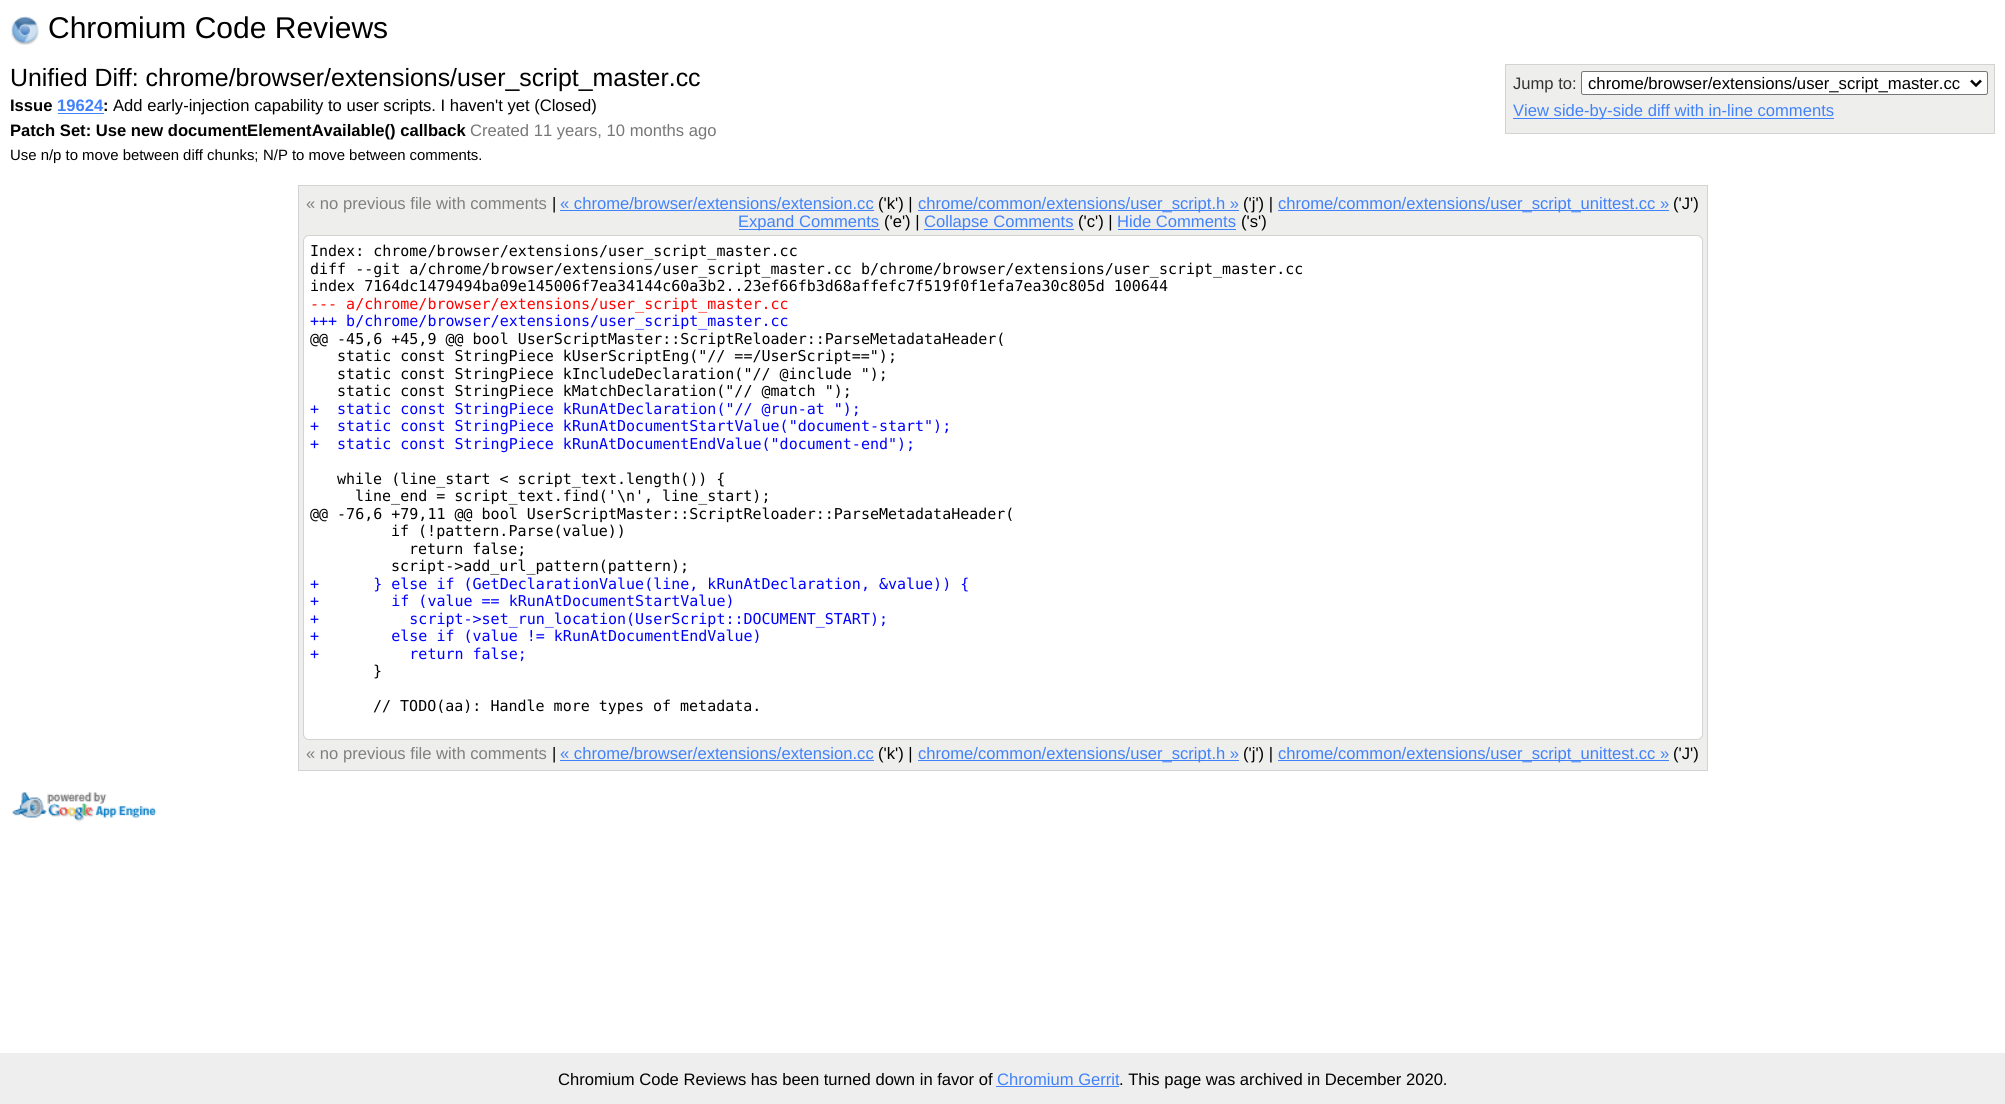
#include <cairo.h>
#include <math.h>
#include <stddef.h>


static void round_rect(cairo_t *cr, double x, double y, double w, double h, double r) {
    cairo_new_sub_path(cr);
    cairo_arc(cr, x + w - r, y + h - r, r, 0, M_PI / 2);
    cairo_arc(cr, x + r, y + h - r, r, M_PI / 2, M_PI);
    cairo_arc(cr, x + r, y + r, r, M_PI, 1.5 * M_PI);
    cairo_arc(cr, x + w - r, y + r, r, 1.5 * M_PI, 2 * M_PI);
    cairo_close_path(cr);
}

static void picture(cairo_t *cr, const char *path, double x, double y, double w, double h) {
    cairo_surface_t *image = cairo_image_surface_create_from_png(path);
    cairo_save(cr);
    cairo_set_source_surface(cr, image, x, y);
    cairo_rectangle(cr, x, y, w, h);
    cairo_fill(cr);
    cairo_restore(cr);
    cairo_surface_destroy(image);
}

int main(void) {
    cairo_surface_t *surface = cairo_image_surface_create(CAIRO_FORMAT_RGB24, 2005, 1104);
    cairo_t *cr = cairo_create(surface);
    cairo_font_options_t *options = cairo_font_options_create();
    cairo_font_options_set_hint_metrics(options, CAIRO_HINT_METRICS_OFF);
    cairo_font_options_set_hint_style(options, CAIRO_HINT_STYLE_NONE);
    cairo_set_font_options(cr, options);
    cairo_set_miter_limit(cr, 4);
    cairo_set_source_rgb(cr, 1, 1, 1);
    cairo_paint(cr);
    picture(cr, "img1.png", 11, 16, 28, 29);
    cairo_select_font_face(cr, "Liberation Sans", CAIRO_FONT_SLANT_NORMAL, CAIRO_FONT_WEIGHT_NORMAL);
    cairo_set_font_size(cr, 30);
    cairo_set_source_rgb(cr, 0, 0, 0);
    cairo_move_to(cr, 48, 38);
    cairo_show_text(cr, "Chromium Code Reviews");
    cairo_set_font_size(cr, 24.9);
    cairo_move_to(cr, 10, 86);
    cairo_show_text(cr, "Unified Diff: chrome/browser/extensions/user_script_master.cc");
    cairo_select_font_face(cr, "Liberation Sans", CAIRO_FONT_SLANT_NORMAL, CAIRO_FONT_WEIGHT_BOLD);
    cairo_set_font_size(cr, 16.6);
    cairo_move_to(cr, 10, 111);
    cairo_show_text(cr, "Issue");
    cairo_set_source_rgb(cr, 0.255, 0.51, 0.98);
    cairo_move_to(cr, 57, 111);
    cairo_show_text(cr, "19624");
    cairo_set_source_rgb(cr, 0, 0, 0);
    cairo_move_to(cr, 103, 111);
    cairo_show_text(cr, ":");
    cairo_set_source_rgb(cr, 0.255, 0.51, 0.98);
    cairo_rectangle(cr, 58, 113, 46, 1);
    cairo_fill(cr);
    cairo_select_font_face(cr, "Liberation Sans", CAIRO_FONT_SLANT_NORMAL, CAIRO_FONT_WEIGHT_NORMAL);
    cairo_set_source_rgb(cr, 0, 0, 0);
    cairo_move_to(cr, 113, 111);
    cairo_show_text(cr, "Add early-injection capability to user scripts. I haven't yet (Closed)");
    cairo_select_font_face(cr, "Liberation Sans", CAIRO_FONT_SLANT_NORMAL, CAIRO_FONT_WEIGHT_BOLD);
    cairo_move_to(cr, 10, 136);
    cairo_show_text(cr, "Patch Set: Use new documentElementAvailable() callback");
    cairo_select_font_face(cr, "Liberation Sans", CAIRO_FONT_SLANT_NORMAL, CAIRO_FONT_WEIGHT_NORMAL);
    cairo_set_source_rgb(cr, 0.467, 0.467, 0.467);
    cairo_move_to(cr, 470, 136);
    cairo_show_text(cr, "Created 11 years, 10 months ago");
    cairo_set_font_size(cr, 14.9);
    cairo_set_source_rgb(cr, 0, 0, 0);
    cairo_move_to(cr, 10, 160);
    cairo_show_text(cr, "Use n/p to move between diff chunks;");
    cairo_move_to(cr, 263, 160);
    cairo_show_text(cr, "N/P to move between comments.");
    cairo_set_source_rgb(cr, 0.933, 0.933, 0.925);
    cairo_rectangle(cr, 1505.5, 64.5, 489, 69);
    cairo_fill_preserve(cr);
    cairo_set_source_rgb(cr, 0.827, 0.827, 0.827);
    cairo_set_line_width(cr, 1);
    cairo_stroke(cr);
    cairo_set_font_size(cr, 16.6);
    cairo_set_source_rgb(cr, 0.2, 0.2, 0.2);
    cairo_move_to(cr, 1513, 89);
    cairo_show_text(cr, "Jump to:");
    cairo_set_source_rgb(cr, 1, 1, 1);
    round_rect(cr, 1581.5, 71.5, 406, 23, 2);
    cairo_fill_preserve(cr);
    cairo_set_source_rgb(cr, 0.463, 0.463, 0.463);
    cairo_stroke(cr);
    cairo_new_path(cr);
    cairo_move_to(cr, 1971, 80.5);
    cairo_line_to(cr, 1976, 85.5);
    cairo_line_to(cr, 1981, 80.5);
    cairo_set_source_rgb(cr, 0, 0, 0);
    cairo_set_line_width(cr, 2.5);
    cairo_stroke(cr);
    cairo_set_font_size(cr, 16.7);
    cairo_move_to(cr, 1588, 89);
    cairo_show_text(cr, "chrome/browser/extensions/user_script_master.cc");
    cairo_set_source_rgb(cr, 0.255, 0.51, 0.98);
    cairo_rectangle(cr, 1513, 118, 321, 1);
    cairo_fill(cr);
    cairo_set_font_size(cr, 16.6);
    cairo_move_to(cr, 1513, 116);
    cairo_show_text(cr, "View side-by-side diff with in-line comments");
    cairo_set_source_rgb(cr, 0.933, 0.933, 0.925);
    cairo_rectangle(cr, 298.5, 185.5, 1409, 585);
    cairo_fill_preserve(cr);
    cairo_set_source_rgb(cr, 0.827, 0.827, 0.827);
    cairo_set_line_width(cr, 1);
    cairo_stroke(cr);
    cairo_set_source_rgb(cr, 0.502, 0.502, 0.502);
    cairo_move_to(cr, 306, 209);
    cairo_show_text(cr, "« no previous file with comments");
    cairo_set_source_rgb(cr, 0, 0, 0);
    cairo_move_to(cr, 552, 209);
    cairo_show_text(cr, "|");
    cairo_set_source_rgb(cr, 0.255, 0.51, 0.98);
    cairo_move_to(cr, 560, 209);
    cairo_show_text(cr, "« chrome/browser/extensions/extension.cc");
    cairo_rectangle(cr, 560, 210, 314, 1);
    cairo_fill(cr);
    cairo_set_source_rgb(cr, 0, 0, 0);
    cairo_move_to(cr, 878, 209);
    cairo_show_text(cr, "('k') |");
    cairo_set_source_rgb(cr, 0.255, 0.51, 0.98);
    cairo_rectangle(cr, 918, 210, 321, 1);
    cairo_fill(cr);
    cairo_move_to(cr, 918, 209);
    cairo_show_text(cr, "chrome/common/extensions/user_script.h »");
    cairo_set_source_rgb(cr, 0, 0, 0);
    cairo_move_to(cr, 1243, 209);
    cairo_show_text(cr, "('j') |");
    cairo_set_source_rgb(cr, 0.255, 0.51, 0.98);
    cairo_rectangle(cr, 1278, 210, 391, 1);
    cairo_fill(cr);
    cairo_move_to(cr, 1278, 209);
    cairo_show_text(cr, "chrome/common/extensions/user_script_unittest.cc »");
    cairo_set_source_rgb(cr, 0, 0, 0);
    cairo_move_to(cr, 1673, 209);
    cairo_show_text(cr, "('J')");
    cairo_set_source_rgb(cr, 0.255, 0.51, 0.98);
    cairo_rectangle(cr, 739, 229, 141, 1);
    cairo_fill(cr);
    cairo_move_to(cr, 738, 227);
    cairo_show_text(cr, "Expand Comments");
    cairo_set_source_rgb(cr, 0, 0, 0);
    cairo_move_to(cr, 884, 227);
    cairo_show_text(cr, "('e') |");
    cairo_set_source_rgb(cr, 0.255, 0.51, 0.98);
    cairo_rectangle(cr, 924, 229, 150, 1);
    cairo_fill(cr);
    cairo_move_to(cr, 924, 227);
    cairo_show_text(cr, "Collapse Comments");
    cairo_set_source_rgb(cr, 0, 0, 0);
    cairo_move_to(cr, 1078, 227);
    cairo_show_text(cr, "('c') |");
    cairo_set_source_rgb(cr, 0.255, 0.51, 0.98);
    cairo_move_to(cr, 1117, 227);
    cairo_show_text(cr, "Hide Comments");
    cairo_rectangle(cr, 1118, 229, 118, 1);
    cairo_fill(cr);
    cairo_set_source_rgb(cr, 0, 0, 0);
    cairo_move_to(cr, 1241, 227);
    cairo_show_text(cr, "('s')");
    cairo_set_source_rgb(cr, 1, 1, 1);
    round_rect(cr, 303.5, 235.5, 1399, 504, 5.5);
    cairo_fill_preserve(cr);
    cairo_set_source_rgb(cr, 0.827, 0.827, 0.827);
    cairo_stroke(cr);
    cairo_select_font_face(cr, "DejaVu Sans Mono", CAIRO_FONT_SLANT_NORMAL, CAIRO_FONT_WEIGHT_NORMAL);
    cairo_set_font_size(cr, 15);
    cairo_set_source_rgb(cr, 0, 0, 0);
    cairo_move_to(cr, 310, 256);
    cairo_show_text(cr, "Index: chrome/browser/extensions/user_script_master.cc");
    cairo_move_to(cr, 310, 274);
    cairo_show_text(cr, "diff --git a/chrome/browser/extensions/user_script_master.cc b/chrome/browser/extensions/user_script_master.cc");
    cairo_move_to(cr, 310, 291);
    cairo_show_text(cr, "index 7164dc1479494ba09e145006f7ea34144c60a3b2..23ef66fb3d68affefc7f519f0f1efa7ea30c805d 100644");
    cairo_set_source_rgb(cr, 1, 0, 0);
    cairo_move_to(cr, 310, 309);
    cairo_show_text(cr, "--- a/chrome/browser/extensions/user_script_master.cc");
    cairo_set_source_rgb(cr, 0, 0, 1);
    cairo_move_to(cr, 310, 326);
    cairo_show_text(cr, "+++ b/chrome/browser/extensions/user_script_master.cc");
    cairo_set_source_rgb(cr, 0, 0, 0);
    cairo_move_to(cr, 310, 344);
    cairo_show_text(cr, "@@ -45,6 +45,9 @@ bool UserScriptMaster::ScriptReloader::ParseMetadataHeader(");
    cairo_move_to(cr, 337, 361);
    cairo_show_text(cr, "static const StringPiece kUserScriptEng(\"// ==/UserScript==\");");
    cairo_move_to(cr, 337, 379);
    cairo_show_text(cr, "static const StringPiece kIncludeDeclaration(\"// @include \");");
    cairo_move_to(cr, 337, 396);
    cairo_show_text(cr, "static const StringPiece kMatchDeclaration(\"// @match \");");
    cairo_set_source_rgb(cr, 0, 0, 1);
    cairo_move_to(cr, 310, 414);
    cairo_show_text(cr, "+  static const StringPiece kRunAtDeclaration(\"// @run-at \");");
    cairo_move_to(cr, 310, 431);
    cairo_show_text(cr, "+  static const StringPiece kRunAtDocumentStartValue(\"document-start\");");
    cairo_move_to(cr, 310, 449);
    cairo_show_text(cr, "+  static const StringPiece kRunAtDocumentEndValue(\"document-end\");");
    cairo_set_source_rgb(cr, 0, 0, 0);
    cairo_move_to(cr, 337, 484);
    cairo_show_text(cr, "while (line_start < script_text.length()) {");
    cairo_move_to(cr, 355, 501);
    cairo_show_text(cr, "line_end = script_text.find('\\n', line_start);");
    cairo_move_to(cr, 310, 519);
    cairo_show_text(cr, "@@ -76,6 +79,11 @@ bool UserScriptMaster::ScriptReloader::ParseMetadataHeader(");
    cairo_move_to(cr, 391, 536);
    cairo_show_text(cr, "if (!pattern.Parse(value))");
    cairo_move_to(cr, 409, 554);
    cairo_show_text(cr, "return false;");
    cairo_move_to(cr, 391, 571);
    cairo_show_text(cr, "script->add_url_pattern(pattern);");
    cairo_set_source_rgb(cr, 0, 0, 1);
    cairo_move_to(cr, 310, 589);
    cairo_show_text(cr, "+      } else if (GetDeclarationValue(line, kRunAtDeclaration, &value)) {");
    cairo_move_to(cr, 310, 606);
    cairo_show_text(cr, "+        if (value == kRunAtDocumentStartValue)");
    cairo_move_to(cr, 310, 624);
    cairo_show_text(cr, "+          script->set_run_location(UserScript::DOCUMENT_START);");
    cairo_move_to(cr, 310, 641);
    cairo_show_text(cr, "+        else if (value != kRunAtDocumentEndValue)");
    cairo_move_to(cr, 310, 659);
    cairo_show_text(cr, "+          return false;");
    cairo_set_source_rgb(cr, 0, 0, 0);
    cairo_move_to(cr, 373, 676);
    cairo_show_text(cr, "}");
    cairo_move_to(cr, 373, 711);
    cairo_show_text(cr, "// TODO(aa): Handle more types of metadata.");
    cairo_select_font_face(cr, "Liberation Sans", CAIRO_FONT_SLANT_NORMAL, CAIRO_FONT_WEIGHT_NORMAL);
    cairo_set_font_size(cr, 16.6);
    cairo_set_source_rgb(cr, 0.502, 0.502, 0.502);
    cairo_move_to(cr, 306, 759);
    cairo_show_text(cr, "« no previous file with comments");
    cairo_set_source_rgb(cr, 0, 0, 0);
    cairo_move_to(cr, 552, 759);
    cairo_show_text(cr, "|");
    cairo_set_source_rgb(cr, 0.255, 0.51, 0.98);
    cairo_move_to(cr, 560, 759);
    cairo_show_text(cr, "« chrome/browser/extensions/extension.cc");
    cairo_rectangle(cr, 560, 760, 314, 1);
    cairo_fill(cr);
    cairo_set_source_rgb(cr, 0, 0, 0);
    cairo_move_to(cr, 878, 759);
    cairo_show_text(cr, "('k') |");
    cairo_set_source_rgb(cr, 0.255, 0.51, 0.98);
    cairo_rectangle(cr, 918, 760, 321, 1);
    cairo_fill(cr);
    cairo_move_to(cr, 918, 759);
    cairo_show_text(cr, "chrome/common/extensions/user_script.h »");
    cairo_set_source_rgb(cr, 0, 0, 0);
    cairo_move_to(cr, 1243, 759);
    cairo_show_text(cr, "('j') |");
    cairo_set_source_rgb(cr, 0.255, 0.51, 0.98);
    cairo_rectangle(cr, 1278, 760, 391, 1);
    cairo_fill(cr);
    cairo_move_to(cr, 1278, 759);
    cairo_show_text(cr, "chrome/common/extensions/user_script_unittest.cc »");
    cairo_set_source_rgb(cr, 0, 0, 0);
    cairo_move_to(cr, 1673, 759);
    cairo_show_text(cr, "('J')");
    picture(cr, "img2.png", 12, 792, 145, 30);
    cairo_set_source_rgb(cr, 0.933, 0.933, 0.933);
    cairo_rectangle(cr, 0, 1053, 2005, 51);
    cairo_fill(cr);
    cairo_set_source_rgb(cr, 0, 0, 0);
    cairo_move_to(cr, 558, 1085);
    cairo_show_text(cr, "Chromium Code Reviews has been turned down in favor of");
    cairo_set_source_rgb(cr, 0.255, 0.51, 0.98);
    cairo_move_to(cr, 997, 1085);
    cairo_show_text(cr, "Chromium Gerrit");
    cairo_rectangle(cr, 996, 1086, 123, 1);
    cairo_fill(cr);
    cairo_set_source_rgb(cr, 0, 0, 0);
    cairo_move_to(cr, 1119, 1085);
    cairo_show_text(cr, ". This page was archived in December 2020.");
    cairo_surface_write_to_png(surface, "page.png");
    cairo_font_options_destroy(options);
    cairo_destroy(cr);
    cairo_surface_destroy(surface);
    return 0;
}
